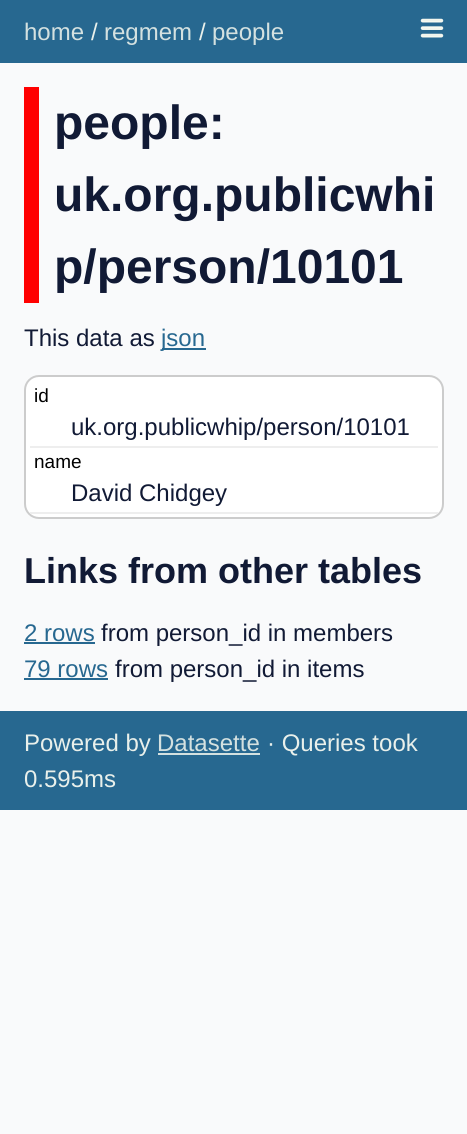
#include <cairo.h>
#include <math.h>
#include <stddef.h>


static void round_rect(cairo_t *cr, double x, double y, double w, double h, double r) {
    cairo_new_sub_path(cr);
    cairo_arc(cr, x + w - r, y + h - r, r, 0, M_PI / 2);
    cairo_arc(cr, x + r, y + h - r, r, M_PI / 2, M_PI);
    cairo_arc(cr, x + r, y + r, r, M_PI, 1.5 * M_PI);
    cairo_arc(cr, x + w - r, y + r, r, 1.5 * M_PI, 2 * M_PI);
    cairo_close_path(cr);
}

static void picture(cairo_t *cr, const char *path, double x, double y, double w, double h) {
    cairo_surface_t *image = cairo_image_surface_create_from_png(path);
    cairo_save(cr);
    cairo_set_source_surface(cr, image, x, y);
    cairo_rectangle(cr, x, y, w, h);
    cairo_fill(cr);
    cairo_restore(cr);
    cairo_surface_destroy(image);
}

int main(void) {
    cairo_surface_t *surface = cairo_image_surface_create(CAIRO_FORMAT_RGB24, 467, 1134);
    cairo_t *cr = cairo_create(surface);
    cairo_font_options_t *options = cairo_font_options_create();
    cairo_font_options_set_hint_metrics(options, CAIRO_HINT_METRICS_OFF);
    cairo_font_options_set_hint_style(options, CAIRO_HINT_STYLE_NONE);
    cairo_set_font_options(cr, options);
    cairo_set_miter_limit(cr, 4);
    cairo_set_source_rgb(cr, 0.973, 0.98, 0.984);
    cairo_paint(cr);
    cairo_set_source_rgb(cr, 0.153, 0.408, 0.565);
    cairo_rectangle(cr, 0, 0, 467, 63);
    cairo_fill(cr);
    cairo_select_font_face(cr, "Liberation Sans", CAIRO_FONT_SLANT_NORMAL, CAIRO_FONT_WEIGHT_NORMAL);
    cairo_set_font_size(cr, 24);
    cairo_set_source_rgb(cr, 0.831, 0.882, 0.878);
    cairo_move_to(cr, 24, 40);
    cairo_show_text(cr, "home");
    cairo_set_source_rgb(cr, 0.914, 0.941, 0.918);
    cairo_move_to(cr, 91, 40);
    cairo_show_text(cr, "/");
    cairo_set_source_rgb(cr, 0.831, 0.882, 0.878);
    cairo_move_to(cr, 104, 40);
    cairo_show_text(cr, "regmem");
    cairo_set_source_rgb(cr, 0.914, 0.941, 0.918);
    cairo_move_to(cr, 199, 40);
    cairo_show_text(cr, "/");
    cairo_set_source_rgb(cr, 0.831, 0.882, 0.878);
    cairo_move_to(cr, 212, 40);
    cairo_show_text(cr, "people");
    picture(cr, "img1.png", 420, 18, 24, 20);
    cairo_set_source_rgb(cr, 1, 0, 0);
    cairo_rectangle(cr, 24, 87, 15, 216);
    cairo_fill(cr);
    cairo_select_font_face(cr, "Liberation Sans", CAIRO_FONT_SLANT_NORMAL, CAIRO_FONT_WEIGHT_BOLD);
    cairo_set_font_size(cr, 48);
    cairo_set_source_rgb(cr, 0.067, 0.102, 0.208);
    cairo_move_to(cr, 54, 139);
    cairo_show_text(cr, "people:");
    cairo_move_to(cr, 54, 211);
    cairo_show_text(cr, "uk.org.publicwhi");
    cairo_move_to(cr, 54, 283);
    cairo_show_text(cr, "p/person/10101");
    cairo_select_font_face(cr, "Liberation Sans", CAIRO_FONT_SLANT_NORMAL, CAIRO_FONT_WEIGHT_NORMAL);
    cairo_set_font_size(cr, 24);
    cairo_move_to(cr, 24, 346);
    cairo_show_text(cr, "This data as");
    cairo_set_source_rgb(cr, 0.153, 0.408, 0.565);
    cairo_rectangle(cr, 162, 348, 44, 2);
    cairo_fill(cr);
    cairo_move_to(cr, 161, 346);
    cairo_show_text(cr, "json");
    cairo_set_source_rgb(cr, 1, 1, 1);
    round_rect(cr, 25, 376, 418, 142, 14);
    cairo_fill_preserve(cr);
    cairo_set_source_rgb(cr, 0.8, 0.8, 0.8);
    cairo_stroke(cr);
    cairo_set_source_rgb(cr, 0.933, 0.933, 0.933);
    cairo_rectangle(cr, 30, 446, 408, 2);
    cairo_fill(cr);
    cairo_set_font_size(cr, 19);
    cairo_set_source_rgb(cr, 0, 0, 0);
    cairo_move_to(cr, 34, 402);
    cairo_show_text(cr, "id");
    cairo_set_font_size(cr, 24);
    cairo_set_source_rgb(cr, 0.067, 0.102, 0.208);
    cairo_move_to(cr, 71, 435);
    cairo_show_text(cr, "uk.org.publicwhip/person/10101");
    cairo_set_source_rgb(cr, 0.933, 0.933, 0.933);
    cairo_rectangle(cr, 30, 512, 408, 2);
    cairo_fill(cr);
    cairo_set_font_size(cr, 19);
    cairo_set_source_rgb(cr, 0, 0, 0);
    cairo_move_to(cr, 34, 468);
    cairo_show_text(cr, "name");
    cairo_set_font_size(cr, 24);
    cairo_set_source_rgb(cr, 0.067, 0.102, 0.208);
    cairo_move_to(cr, 71, 501);
    cairo_show_text(cr, "David Chidgey");
    cairo_select_font_face(cr, "Liberation Sans", CAIRO_FONT_SLANT_NORMAL, CAIRO_FONT_WEIGHT_BOLD);
    cairo_set_font_size(cr, 36);
    cairo_move_to(cr, 24, 583);
    cairo_show_text(cr, "Links from other tables");
    cairo_select_font_face(cr, "Liberation Sans", CAIRO_FONT_SLANT_NORMAL, CAIRO_FONT_WEIGHT_NORMAL);
    cairo_set_font_size(cr, 24);
    cairo_set_source_rgb(cr, 0.153, 0.408, 0.565);
    cairo_move_to(cr, 24, 641);
    cairo_show_text(cr, "2 rows");
    cairo_rectangle(cr, 24, 642, 71, 2);
    cairo_fill(cr);
    cairo_set_source_rgb(cr, 0.067, 0.102, 0.208);
    cairo_move_to(cr, 101, 641);
    cairo_show_text(cr, "from person_id in members");
    cairo_set_source_rgb(cr, 0.153, 0.408, 0.565);
    cairo_move_to(cr, 24, 677);
    cairo_show_text(cr, "79 rows");
    cairo_rectangle(cr, 24, 678, 84, 2);
    cairo_fill(cr);
    cairo_set_source_rgb(cr, 0.067, 0.102, 0.208);
    cairo_move_to(cr, 115, 677);
    cairo_show_text(cr, "from person_id in items");
    cairo_set_source_rgb(cr, 0.153, 0.408, 0.565);
    cairo_rectangle(cr, 0, 711, 467, 99);
    cairo_fill(cr);
    cairo_set_source_rgb(cr, 0.914, 0.941, 0.918);
    cairo_move_to(cr, 24, 751);
    cairo_show_text(cr, "Powered by");
    cairo_set_source_rgb(cr, 0.831, 0.882, 0.878);
    cairo_move_to(cr, 157, 751);
    cairo_show_text(cr, "Datasette");
    cairo_rectangle(cr, 158, 753, 102, 2);
    cairo_fill(cr);
    cairo_set_source_rgb(cr, 0.914, 0.941, 0.918);
    cairo_move_to(cr, 267, 751);
    cairo_show_text(cr, "· Queries took");
    cairo_move_to(cr, 24, 787);
    cairo_show_text(cr, "0.595ms");
    cairo_surface_write_to_png(surface, "page.png");
    cairo_font_options_destroy(options);
    cairo_destroy(cr);
    cairo_surface_destroy(surface);
    return 0;
}
